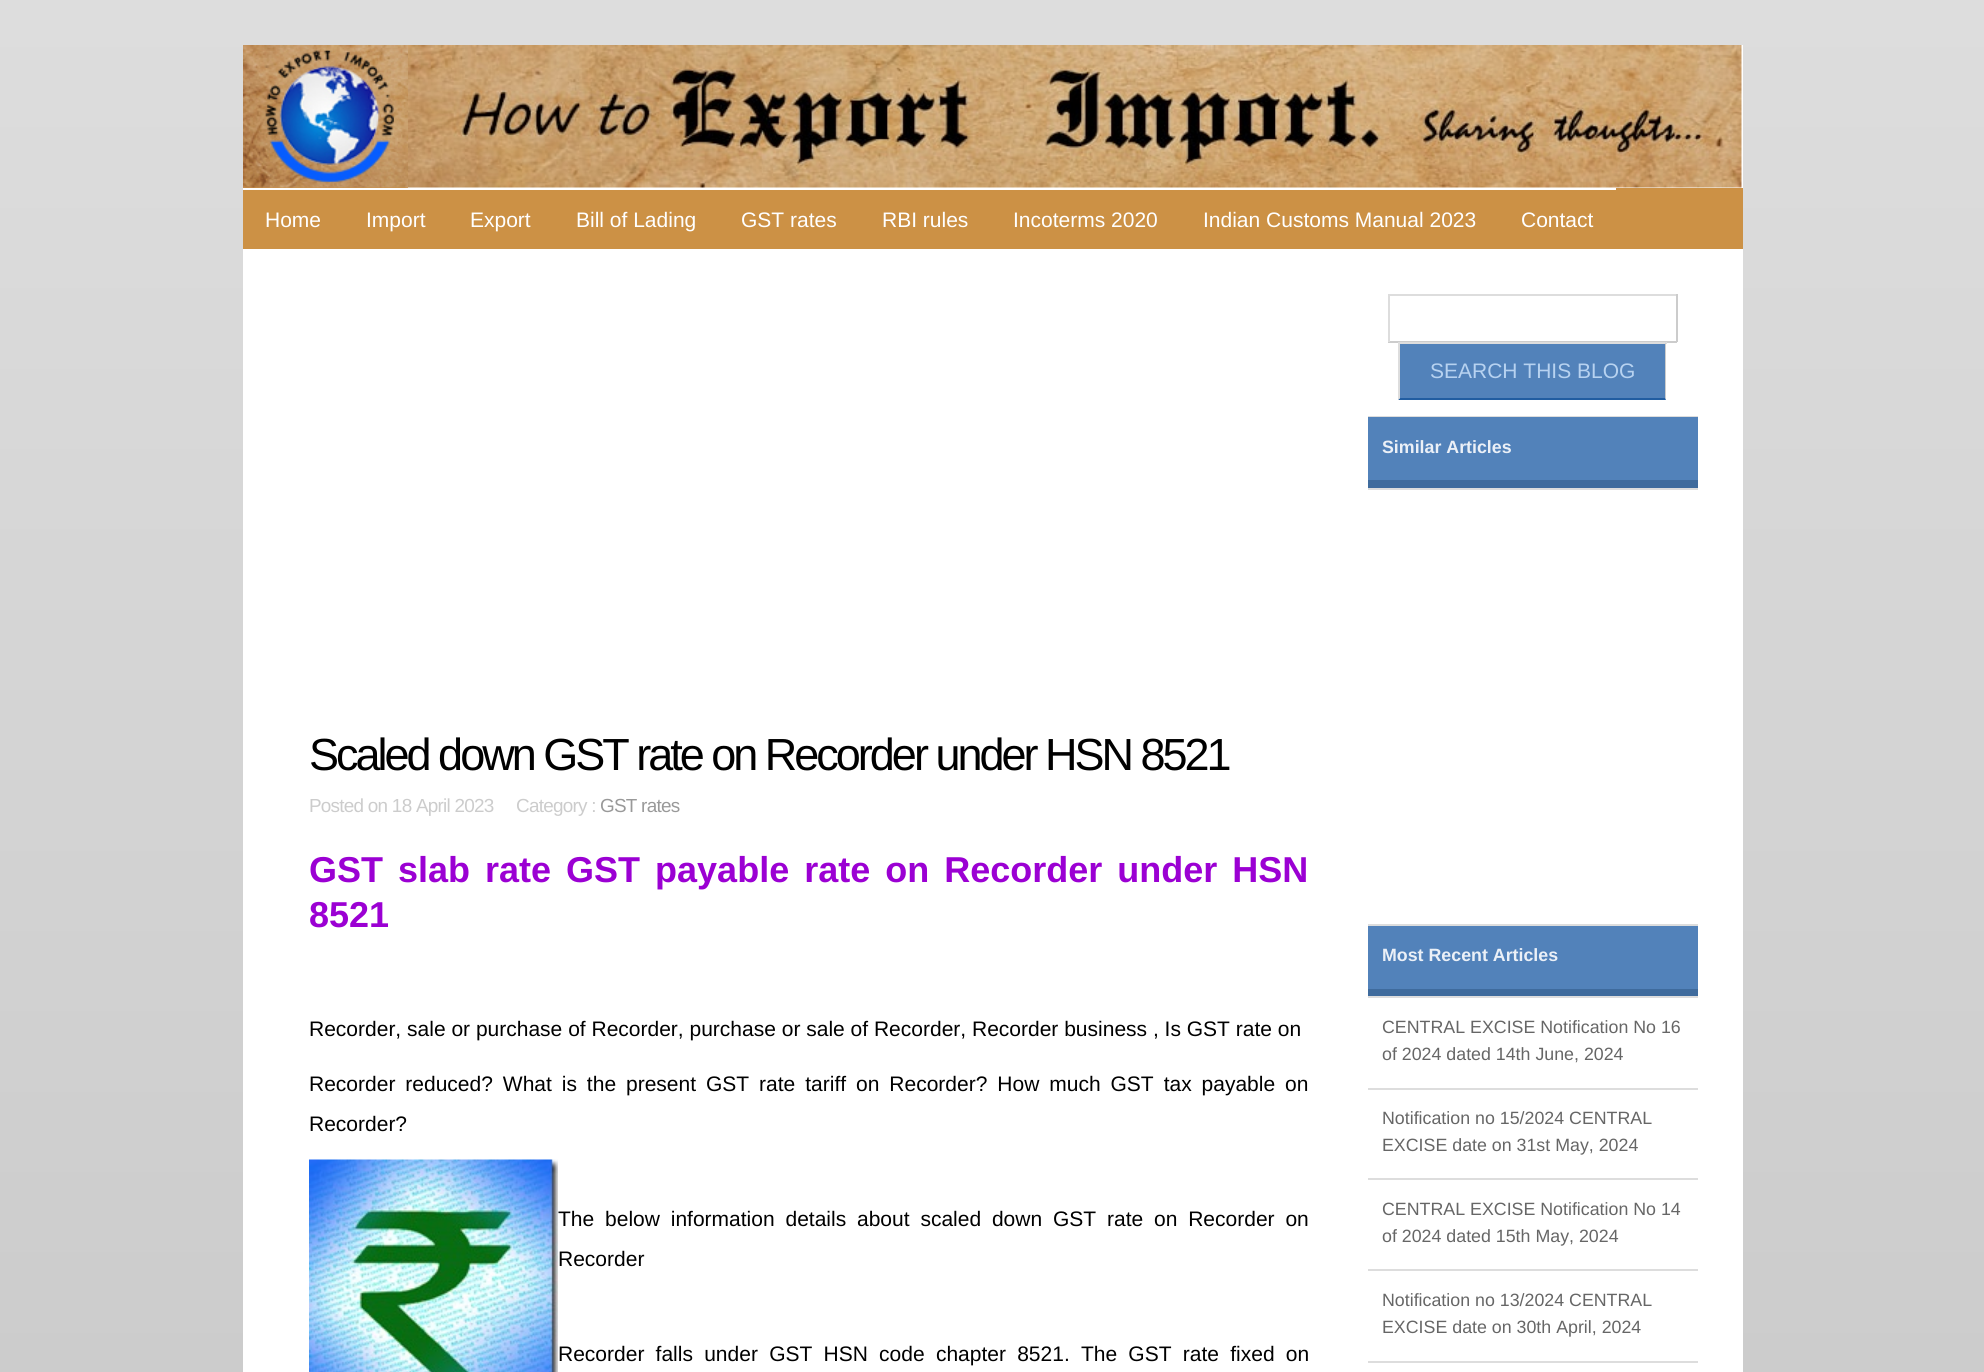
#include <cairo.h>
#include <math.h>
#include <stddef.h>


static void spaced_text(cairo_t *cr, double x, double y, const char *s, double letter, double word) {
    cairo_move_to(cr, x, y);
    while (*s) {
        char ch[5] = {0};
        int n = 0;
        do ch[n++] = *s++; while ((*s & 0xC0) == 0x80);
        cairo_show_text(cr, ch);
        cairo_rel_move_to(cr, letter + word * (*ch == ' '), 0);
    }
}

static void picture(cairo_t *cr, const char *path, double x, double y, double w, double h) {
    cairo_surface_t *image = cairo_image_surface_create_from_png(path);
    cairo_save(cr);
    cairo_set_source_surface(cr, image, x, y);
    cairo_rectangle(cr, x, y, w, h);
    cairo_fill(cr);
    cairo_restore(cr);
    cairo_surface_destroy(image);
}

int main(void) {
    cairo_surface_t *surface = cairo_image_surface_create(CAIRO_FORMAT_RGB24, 1984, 1372);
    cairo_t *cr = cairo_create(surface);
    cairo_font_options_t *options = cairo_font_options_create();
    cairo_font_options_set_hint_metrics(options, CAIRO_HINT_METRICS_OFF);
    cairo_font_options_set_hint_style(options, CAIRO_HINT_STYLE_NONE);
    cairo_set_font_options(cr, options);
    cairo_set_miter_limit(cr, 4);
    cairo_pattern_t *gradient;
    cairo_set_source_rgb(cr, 1, 1, 1);
    cairo_paint(cr);
    gradient = cairo_pattern_create_linear(992, 0, 992, 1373);
    cairo_pattern_add_color_stop_rgba(gradient, 0, 0.867, 0.867, 0.867, 1);
    cairo_pattern_add_color_stop_rgba(gradient, 1, 0.8, 0.8, 0.8, 1);
    cairo_set_source(cr, gradient);
    cairo_pattern_destroy(gradient);
    cairo_rectangle(cr, 0, 0, 1984, 1372);
    cairo_fill(cr);
    cairo_set_source_rgb(cr, 1, 1, 1);
    cairo_rectangle(cr, 243, 45, 1500, 1327);
    cairo_fill(cr);
    cairo_set_source_rgb(cr, 0.8, 0.569, 0.271);
    cairo_rectangle(cr, 243, 187, 165, 1);
    cairo_fill(cr);
    picture(cr, "img1.png", 243, 45, 165, 143);
    picture(cr, "img2.png", 408, 45, 1334, 143);
    cairo_rectangle(cr, 243, 188, 1500, 61);
    cairo_fill(cr);
    cairo_set_source_rgb(cr, 1, 1, 1);
    cairo_rectangle(cr, 243, 188, 1373, 2);
    cairo_fill(cr);
    cairo_select_font_face(cr, "Liberation Sans", CAIRO_FONT_SLANT_NORMAL, CAIRO_FONT_WEIGHT_NORMAL);
    cairo_set_font_size(cr, 21);
    cairo_move_to(cr, 265, 227);
    cairo_show_text(cr, "Home");
    cairo_move_to(cr, 366, 227);
    cairo_show_text(cr, "Import");
    cairo_move_to(cr, 470, 227);
    cairo_show_text(cr, "Export");
    cairo_move_to(cr, 576, 227);
    cairo_show_text(cr, "Bill of Lading");
    cairo_move_to(cr, 741, 227);
    cairo_show_text(cr, "GST rates");
    cairo_move_to(cr, 882, 227);
    cairo_show_text(cr, "RBI rules");
    cairo_move_to(cr, 1013, 227);
    cairo_show_text(cr, "Incoterms 2020");
    cairo_move_to(cr, 1203, 227);
    cairo_show_text(cr, "Indian Customs Manual 2023");
    cairo_move_to(cr, 1521, 227);
    cairo_show_text(cr, "Contact");
    cairo_set_font_size(cr, 45);
    cairo_set_source_rgb(cr, 0, 0, 0);
    spaced_text(cr, 309, 770, "Scaled down GST rate on Recorder under HSN 8521", -3, 0);
    cairo_set_font_size(cr, 18.9);
    cairo_set_source_rgb(cr, 0.8, 0.8, 0.8);
    spaced_text(cr, 309, 812, "Posted on 18 April 2023     Category :", -0.75, 0);
    cairo_set_source_rgb(cr, 0.6, 0.6, 0.6);
    spaced_text(cr, 600, 812, "GST rates", -0.75, 0);
    cairo_select_font_face(cr, "Liberation Sans", CAIRO_FONT_SLANT_NORMAL, CAIRO_FONT_WEIGHT_BOLD);
    cairo_set_font_size(cr, 36);
    cairo_set_source_rgb(cr, 0.608, 0, 0.827);
    spaced_text(cr, 309, 882, "GST slab rate GST payable rate on Recorder under HSN", 0, 5);
    cairo_move_to(cr, 309, 927);
    cairo_show_text(cr, "8521");
    cairo_select_font_face(cr, "Liberation Sans", CAIRO_FONT_SLANT_NORMAL, CAIRO_FONT_WEIGHT_NORMAL);
    cairo_set_font_size(cr, 21);
    cairo_set_source_rgb(cr, 0, 0, 0);
    cairo_move_to(cr, 309, 1036);
    cairo_show_text(cr, "Recorder, sale or purchase of Recorder, purchase or sale of Recorder, Recorder business , Is GST rate on");
    spaced_text(cr, 309, 1091, "Recorder reduced? What is the present GST rate tariff on Recorder? How much GST tax payable on", 0, 4.1);
    cairo_move_to(cr, 309, 1131);
    cairo_show_text(cr, "Recorder?");
    picture(cr, "img3.png", 309, 1159, 249, 213);
    spaced_text(cr, 558, 1226, "The below information details about scaled down GST rate on Recorder on", 0, 5);
    cairo_move_to(cr, 558, 1266);
    cairo_show_text(cr, "Recorder");
    spaced_text(cr, 558, 1361, "Recorder falls under GST HSN code chapter 8521. The GST rate fixed on", 0, 5.4);
    cairo_set_source_rgb(cr, 0.867, 0.867, 0.867);
    cairo_rectangle(cr, 1388, 294, 289, 2);
    cairo_fill(cr);
    cairo_set_source_rgb(cr, 0.8, 0.8, 0.8);
    cairo_rectangle(cr, 1676, 294, 2, 48);
    cairo_fill(cr);
    cairo_rectangle(cr, 1388, 341, 289, 2);
    cairo_fill(cr);
    cairo_set_source_rgb(cr, 0.867, 0.867, 0.867);
    cairo_rectangle(cr, 1388, 294, 2, 48);
    cairo_fill(cr);
    cairo_set_source_rgb(cr, 0.322, 0.51, 0.729);
    cairo_rectangle(cr, 1400, 344, 265, 54);
    cairo_fill(cr);
    cairo_set_source_rgb(cr, 0.867, 0.867, 0.867);
    cairo_rectangle(cr, 1398, 342, 269, 2);
    cairo_fill(cr);
    cairo_set_source_rgb(cr, 0.8, 0.8, 0.8);
    cairo_new_path(cr);
    cairo_move_to(cr, 1666, 342);
    cairo_line_to(cr, 1666, 400);
    cairo_line_to(cr, 1665, 398);
    cairo_line_to(cr, 1665, 344);
    cairo_close_path(cr);
    cairo_fill(cr);
    cairo_set_source_rgb(cr, 0.129, 0.365, 0.631);
    cairo_new_path(cr);
    cairo_move_to(cr, 1666, 400);
    cairo_line_to(cr, 1398, 400);
    cairo_line_to(cr, 1400, 398);
    cairo_line_to(cr, 1665, 398);
    cairo_close_path(cr);
    cairo_fill(cr);
    cairo_set_source_rgb(cr, 0.867, 0.867, 0.867);
    cairo_new_path(cr);
    cairo_move_to(cr, 1398, 400);
    cairo_line_to(cr, 1398, 342);
    cairo_line_to(cr, 1400, 344);
    cairo_line_to(cr, 1400, 398);
    cairo_close_path(cr);
    cairo_fill(cr);
    cairo_set_source_rgb(cr, 0.718, 0.824, 0.941);
    cairo_move_to(cr, 1430, 378);
    cairo_show_text(cr, "SEARCH THIS BLOG");
    cairo_set_source_rgb(cr, 0.867, 0.867, 0.867);
    cairo_rectangle(cr, 1368, 416, 330, 1);
    cairo_fill(cr);
    cairo_rectangle(cr, 1368, 488, 330, 2);
    cairo_fill(cr);
    cairo_set_source_rgb(cr, 0.322, 0.51, 0.729);
    cairo_rectangle(cr, 1368, 417, 330, 63);
    cairo_fill(cr);
    cairo_set_source_rgb(cr, 0.247, 0.42, 0.616);
    cairo_rectangle(cr, 1368, 480, 330, 8);
    cairo_fill(cr);
    cairo_select_font_face(cr, "Liberation Sans", CAIRO_FONT_SLANT_NORMAL, CAIRO_FONT_WEIGHT_BOLD);
    cairo_set_font_size(cr, 17.8);
    cairo_set_source_rgb(cr, 0.918, 0.941, 0.965);
    cairo_move_to(cr, 1382, 453);
    cairo_show_text(cr, "Similar Articles");
    cairo_set_source_rgb(cr, 0.867, 0.867, 0.867);
    cairo_rectangle(cr, 1368, 924, 330, 2);
    cairo_fill(cr);
    cairo_rectangle(cr, 1368, 996, 330, 2);
    cairo_fill(cr);
    cairo_set_source_rgb(cr, 0.322, 0.51, 0.729);
    cairo_rectangle(cr, 1368, 926, 330, 63);
    cairo_fill(cr);
    cairo_set_source_rgb(cr, 0.247, 0.42, 0.616);
    cairo_rectangle(cr, 1368, 989, 330, 7);
    cairo_fill(cr);
    cairo_set_source_rgb(cr, 0.918, 0.941, 0.965);
    cairo_move_to(cr, 1382, 961);
    cairo_show_text(cr, "Most Recent Articles");
    cairo_set_source_rgb(cr, 0.867, 0.867, 0.867);
    cairo_rectangle(cr, 1368, 1088, 330, 2);
    cairo_fill(cr);
    cairo_select_font_face(cr, "Liberation Sans", CAIRO_FONT_SLANT_NORMAL, CAIRO_FONT_WEIGHT_NORMAL);
    cairo_set_source_rgb(cr, 0.4, 0.4, 0.4);
    cairo_move_to(cr, 1382, 1033);
    cairo_show_text(cr, "CENTRAL EXCISE Notification No 16");
    cairo_move_to(cr, 1382, 1060);
    cairo_show_text(cr, "of 2024 dated 14th June, 2024");
    cairo_set_source_rgb(cr, 0.867, 0.867, 0.867);
    cairo_rectangle(cr, 1368, 1178, 330, 2);
    cairo_fill(cr);
    cairo_set_source_rgb(cr, 0.4, 0.4, 0.4);
    cairo_move_to(cr, 1382, 1124);
    cairo_show_text(cr, "Notification no 15/2024 CENTRAL");
    cairo_move_to(cr, 1382, 1151);
    cairo_show_text(cr, "EXCISE date on 31st May, 2024");
    cairo_set_source_rgb(cr, 0.867, 0.867, 0.867);
    cairo_rectangle(cr, 1368, 1269, 330, 2);
    cairo_fill(cr);
    cairo_set_source_rgb(cr, 0.4, 0.4, 0.4);
    cairo_move_to(cr, 1382, 1215);
    cairo_show_text(cr, "CENTRAL EXCISE Notification No 14");
    cairo_move_to(cr, 1382, 1242);
    cairo_show_text(cr, "of 2024 dated 15th May, 2024");
    cairo_set_source_rgb(cr, 0.867, 0.867, 0.867);
    cairo_rectangle(cr, 1368, 1361, 330, 2);
    cairo_fill(cr);
    cairo_set_source_rgb(cr, 0.4, 0.4, 0.4);
    cairo_move_to(cr, 1382, 1306);
    cairo_show_text(cr, "Notification no 13/2024 CENTRAL");
    cairo_move_to(cr, 1382, 1333);
    cairo_show_text(cr, "EXCISE date on 30th April, 2024");
    cairo_surface_write_to_png(surface, "page.png");
    cairo_font_options_destroy(options);
    cairo_destroy(cr);
    cairo_surface_destroy(surface);
    return 0;
}
